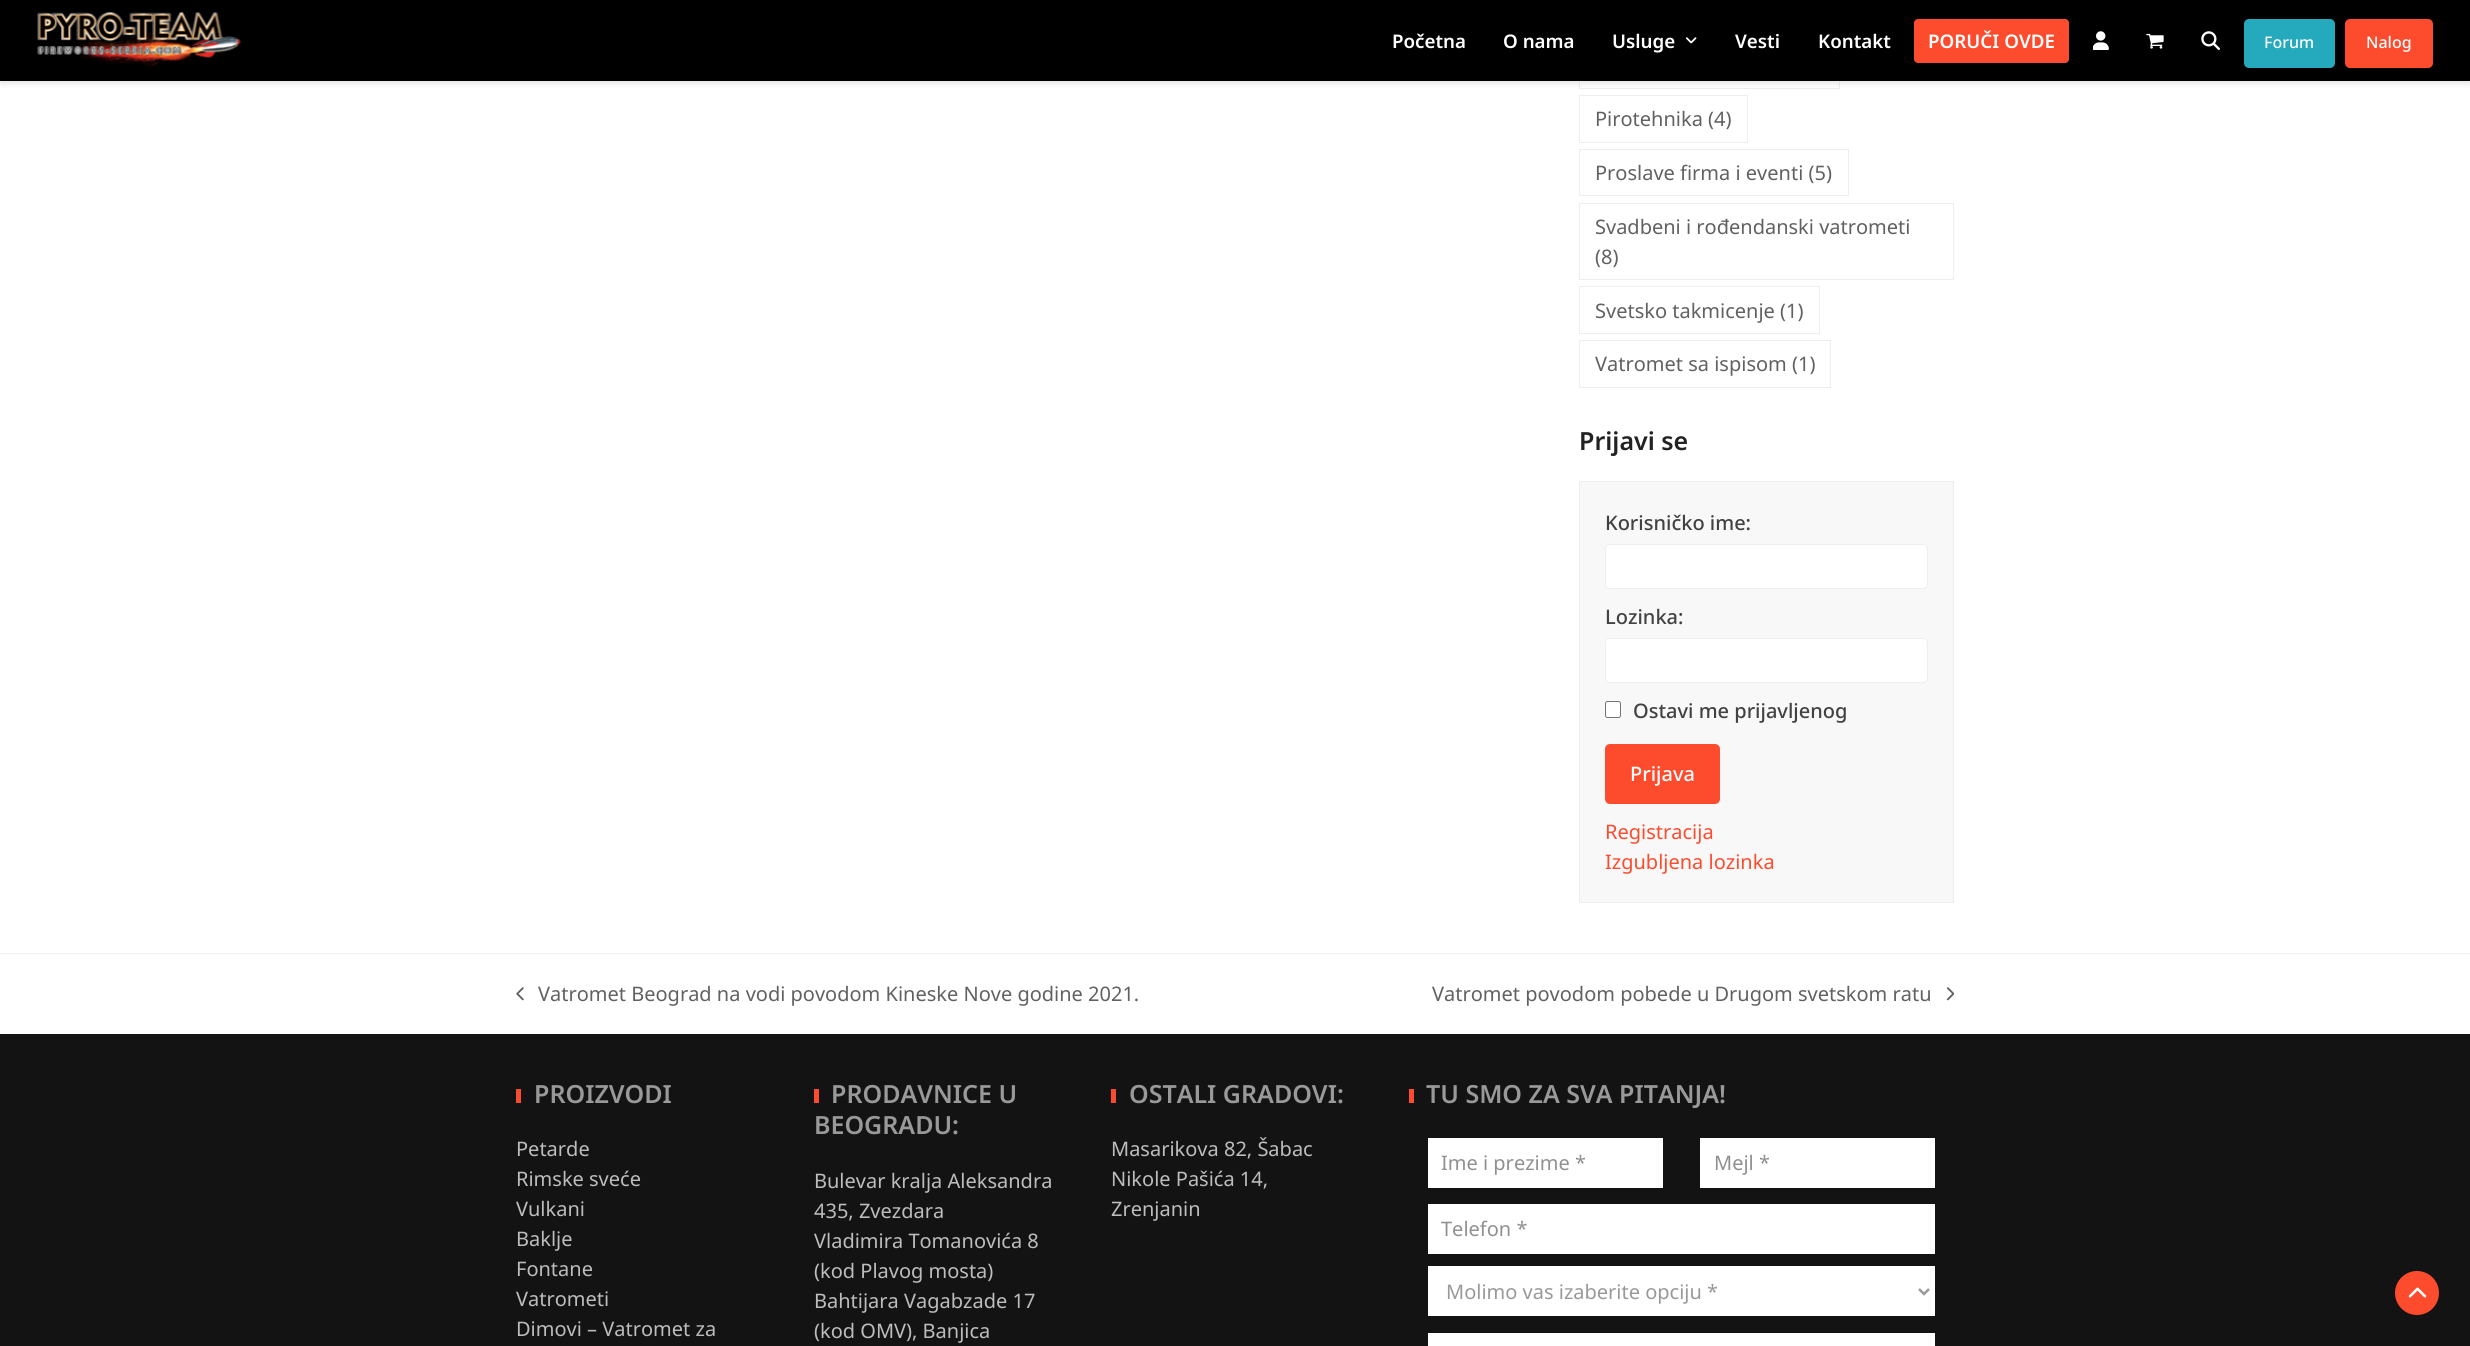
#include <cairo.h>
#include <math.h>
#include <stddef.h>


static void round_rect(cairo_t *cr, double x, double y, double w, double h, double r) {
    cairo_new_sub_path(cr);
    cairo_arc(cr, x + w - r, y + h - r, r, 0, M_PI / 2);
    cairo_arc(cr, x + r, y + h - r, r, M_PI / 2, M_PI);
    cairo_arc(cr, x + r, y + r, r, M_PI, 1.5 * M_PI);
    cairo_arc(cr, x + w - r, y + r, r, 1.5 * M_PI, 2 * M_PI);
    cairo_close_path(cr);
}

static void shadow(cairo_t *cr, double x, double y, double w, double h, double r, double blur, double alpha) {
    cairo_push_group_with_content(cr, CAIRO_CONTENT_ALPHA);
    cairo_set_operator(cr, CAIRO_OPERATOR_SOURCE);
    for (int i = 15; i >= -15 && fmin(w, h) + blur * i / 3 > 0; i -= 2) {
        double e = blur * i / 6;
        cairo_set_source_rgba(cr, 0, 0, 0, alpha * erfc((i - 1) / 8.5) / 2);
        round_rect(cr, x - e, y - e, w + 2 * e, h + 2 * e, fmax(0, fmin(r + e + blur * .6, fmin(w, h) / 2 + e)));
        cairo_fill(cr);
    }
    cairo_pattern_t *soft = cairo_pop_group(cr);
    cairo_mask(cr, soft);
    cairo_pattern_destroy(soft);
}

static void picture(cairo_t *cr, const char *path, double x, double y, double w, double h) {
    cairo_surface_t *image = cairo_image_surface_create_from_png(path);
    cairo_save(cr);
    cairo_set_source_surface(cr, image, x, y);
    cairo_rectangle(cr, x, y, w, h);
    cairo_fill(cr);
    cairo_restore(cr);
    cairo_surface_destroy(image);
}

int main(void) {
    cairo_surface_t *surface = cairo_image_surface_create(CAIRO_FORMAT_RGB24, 2470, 1346);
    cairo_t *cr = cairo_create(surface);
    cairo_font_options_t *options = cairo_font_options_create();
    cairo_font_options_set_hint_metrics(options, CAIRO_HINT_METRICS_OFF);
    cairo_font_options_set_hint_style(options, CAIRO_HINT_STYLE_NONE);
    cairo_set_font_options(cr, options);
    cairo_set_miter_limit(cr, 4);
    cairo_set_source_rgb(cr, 1, 1, 1);
    cairo_paint(cr);
    cairo_rectangle(cr, 1579.5, 41.5, 260, 47);
    cairo_set_source_rgb(cr, 0.933, 0.933, 0.933);
    cairo_set_line_width(cr, 1);
    cairo_stroke(cr);
    cairo_set_source_rgb(cr, 0, 0, 0);
    shadow(cr, 0, 3, 2470, 81, 0, 3, 0.1);
    cairo_set_source_rgb(cr, 0, 0, 0);
    cairo_rectangle(cr, 0, 0, 2470, 81);
    cairo_fill(cr);
    picture(cr, "img1.png", 37, 12, 204, 56);
    cairo_select_font_face(cr, "Noto Sans SemiBold", CAIRO_FONT_SLANT_NORMAL, CAIRO_FONT_WEIGHT_NORMAL);
    cairo_set_font_size(cr, 18.75);
    cairo_set_source_rgb(cr, 1, 1, 1);
    cairo_move_to(cr, 1392, 48);
    cairo_show_text(cr, "Početna");
    cairo_move_to(cr, 1503, 48);
    cairo_show_text(cr, "O nama");
    cairo_move_to(cr, 1612, 48);
    cairo_show_text(cr, "Usluge");
    picture(cr, "img2.png", 1685, 37, 12, 7);
    cairo_move_to(cr, 1735, 48);
    cairo_show_text(cr, "Vesti");
    cairo_move_to(cr, 1818, 48);
    cairo_show_text(cr, "Kontakt");
    cairo_set_source_rgb(cr, 0.992, 0.294, 0.176);
    round_rect(cr, 1914, 19, 155, 44, 4);
    cairo_fill(cr);
    cairo_set_source_rgb(cr, 1, 1, 1);
    cairo_move_to(cr, 1928, 48);
    cairo_show_text(cr, "PORUČI OVDE");
    picture(cr, "img3.png", 2093, 31, 16, 19);
    picture(cr, "img4.png", 2146, 33, 18, 16);
    picture(cr, "img5.png", 2201, 31, 19, 19);
    cairo_set_source_rgb(cr, 0.145, 0.663, 0.741);
    round_rect(cr, 2244, 19, 91, 49, 5);
    cairo_fill(cr);
    cairo_select_font_face(cr, "Noto Sans Medium", CAIRO_FONT_SLANT_NORMAL, CAIRO_FONT_WEIGHT_NORMAL);
    cairo_set_font_size(cr, 16);
    cairo_set_source_rgb(cr, 1, 1, 1);
    cairo_move_to(cr, 2264, 48);
    cairo_show_text(cr, "Forum");
    cairo_set_source_rgb(cr, 0.992, 0.294, 0.176);
    round_rect(cr, 2345, 19, 88, 49, 5);
    cairo_fill(cr);
    cairo_set_source_rgb(cr, 1, 1, 1);
    cairo_move_to(cr, 2366, 48);
    cairo_show_text(cr, "Nalog");
    cairo_rectangle(cr, 1579.5, 95.5, 168, 47);
    cairo_set_source_rgb(cr, 0.933, 0.933, 0.933);
    cairo_stroke(cr);
    cairo_select_font_face(cr, "Noto Sans", CAIRO_FONT_SLANT_NORMAL, CAIRO_FONT_WEIGHT_NORMAL);
    cairo_set_font_size(cr, 20);
    cairo_set_source_rgb(cr, 0.38, 0.38, 0.38);
    cairo_move_to(cr, 1595, 126);
    cairo_show_text(cr, "Pirotehnika (4)");
    cairo_rectangle(cr, 1579.5, 149.5, 269, 46);
    cairo_set_source_rgb(cr, 0.933, 0.933, 0.933);
    cairo_stroke(cr);
    cairo_set_source_rgb(cr, 0.38, 0.38, 0.38);
    cairo_move_to(cr, 1595, 180);
    cairo_show_text(cr, "Proslave firma i eventi (5)");
    cairo_rectangle(cr, 1579.5, 203.5, 374, 76);
    cairo_set_source_rgb(cr, 0.933, 0.933, 0.933);
    cairo_stroke(cr);
    cairo_set_source_rgb(cr, 0.38, 0.38, 0.38);
    cairo_move_to(cr, 1595, 234);
    cairo_show_text(cr, "Svadbeni i rođendanski vatrometi");
    cairo_move_to(cr, 1595, 264);
    cairo_show_text(cr, "(8)");
    cairo_rectangle(cr, 1579.5, 286.5, 240, 47);
    cairo_set_source_rgb(cr, 0.933, 0.933, 0.933);
    cairo_stroke(cr);
    cairo_set_source_rgb(cr, 0.38, 0.38, 0.38);
    cairo_move_to(cr, 1595, 318);
    cairo_show_text(cr, "Svetsko takmicenje (1)");
    cairo_rectangle(cr, 1579.5, 340.5, 251, 47);
    cairo_set_source_rgb(cr, 0.933, 0.933, 0.933);
    cairo_stroke(cr);
    cairo_set_source_rgb(cr, 0.38, 0.38, 0.38);
    cairo_move_to(cr, 1595, 371);
    cairo_show_text(cr, "Vatromet sa ispisom (1)");
    cairo_select_font_face(cr, "Noto Sans SemiBold", CAIRO_FONT_SLANT_NORMAL, CAIRO_FONT_WEIGHT_NORMAL);
    cairo_set_font_size(cr, 25);
    cairo_set_source_rgb(cr, 0.133, 0.133, 0.133);
    cairo_move_to(cr, 1579, 450);
    cairo_show_text(cr, "Prijavi se");
    cairo_set_source_rgb(cr, 0.969, 0.969, 0.969);
    cairo_rectangle(cr, 1579.5, 481.5, 374, 421);
    cairo_fill_preserve(cr);
    cairo_set_source_rgb(cr, 0.933, 0.933, 0.933);
    cairo_stroke(cr);
    cairo_select_font_face(cr, "Noto Sans Medium", CAIRO_FONT_SLANT_NORMAL, CAIRO_FONT_WEIGHT_NORMAL);
    cairo_set_font_size(cr, 20);
    cairo_set_source_rgb(cr, 0.259, 0.259, 0.259);
    cairo_move_to(cr, 1605, 530);
    cairo_show_text(cr, "Korisničko ime:");
    cairo_set_source_rgb(cr, 1, 1, 1);
    round_rect(cr, 1605.5, 544.5, 322, 44, 4.5);
    cairo_fill_preserve(cr);
    cairo_set_source_rgb(cr, 0.933, 0.933, 0.933);
    cairo_stroke(cr);
    cairo_set_source_rgb(cr, 0.259, 0.259, 0.259);
    cairo_move_to(cr, 1605, 624);
    cairo_show_text(cr, "Lozinka:");
    cairo_set_source_rgb(cr, 1, 1, 1);
    round_rect(cr, 1605.5, 638.5, 322, 44, 4.5);
    cairo_fill_preserve(cr);
    cairo_set_source_rgb(cr, 0.933, 0.933, 0.933);
    cairo_stroke(cr);
    cairo_set_source_rgb(cr, 1, 1, 1);
    round_rect(cr, 1605.5, 701.5, 15, 16, 2);
    cairo_fill_preserve(cr);
    cairo_set_source_rgb(cr, 0.463, 0.463, 0.463);
    cairo_stroke(cr);
    cairo_set_source_rgb(cr, 0.259, 0.259, 0.259);
    cairo_move_to(cr, 1633, 718);
    cairo_show_text(cr, "Ostavi me prijavljenog");
    cairo_set_source_rgb(cr, 0.992, 0.294, 0.176);
    round_rect(cr, 1605, 744, 115, 60, 5);
    cairo_fill(cr);
    cairo_set_source_rgb(cr, 1, 1, 1);
    cairo_move_to(cr, 1630, 781);
    cairo_show_text(cr, "Prijava");
    cairo_select_font_face(cr, "Noto Sans", CAIRO_FONT_SLANT_NORMAL, CAIRO_FONT_WEIGHT_NORMAL);
    cairo_set_source_rgb(cr, 0.992, 0.294, 0.176);
    cairo_move_to(cr, 1605, 839);
    cairo_show_text(cr, "Registracija");
    cairo_move_to(cr, 1605, 869);
    cairo_show_text(cr, "Izgubljena lozinka");
    cairo_set_source_rgb(cr, 0.933, 0.933, 0.933);
    cairo_rectangle(cr, 0, 953, 2470, 1);
    cairo_fill(cr);
    picture(cr, "img6.png", 516, 987, 8, 14);
    cairo_set_source_rgb(cr, 0.38, 0.38, 0.38);
    cairo_move_to(cr, 538, 1001);
    cairo_show_text(cr, "Vatromet Beograd na vodi povodom Kineske Nove godine 2021.");
    cairo_move_to(cr, 1432, 1001);
    cairo_show_text(cr, "Vatromet povodom pobede u Drugom svetskom ratu");
    picture(cr, "img7.png", 1946, 987, 8, 14);
    cairo_set_source_rgb(cr, 0.078, 0.078, 0.078);
    cairo_rectangle(cr, 0, 1034, 2470, 312);
    cairo_fill(cr);
    cairo_set_source_rgb(cr, 0.992, 0.294, 0.176);
    cairo_rectangle(cr, 516, 1089, 5, 14);
    cairo_fill(cr);
    cairo_select_font_face(cr, "Noto Sans SemiBold", CAIRO_FONT_SLANT_NORMAL, CAIRO_FONT_WEIGHT_NORMAL);
    cairo_set_font_size(cr, 25);
    cairo_set_source_rgb(cr, 0.6, 0.6, 0.6);
    cairo_move_to(cr, 534, 1103);
    cairo_show_text(cr, "PROIZVODI");
    cairo_select_font_face(cr, "Noto Sans", CAIRO_FONT_SLANT_NORMAL, CAIRO_FONT_WEIGHT_NORMAL);
    cairo_set_font_size(cr, 20);
    cairo_set_source_rgb(cr, 0.741, 0.741, 0.741);
    cairo_move_to(cr, 516, 1156);
    cairo_show_text(cr, "Petarde");
    cairo_move_to(cr, 516, 1186);
    cairo_show_text(cr, "Rimske sveće");
    cairo_move_to(cr, 516, 1216);
    cairo_show_text(cr, "Vulkani");
    cairo_move_to(cr, 516, 1246);
    cairo_show_text(cr, "Baklje");
    cairo_move_to(cr, 516, 1276);
    cairo_show_text(cr, "Fontane");
    cairo_move_to(cr, 516, 1306);
    cairo_show_text(cr, "Vatrometi");
    cairo_move_to(cr, 516, 1336);
    cairo_show_text(cr, "Dimovi – Vatromet za");
    cairo_set_source_rgb(cr, 0.992, 0.294, 0.176);
    cairo_rectangle(cr, 814, 1089, 5, 14);
    cairo_fill(cr);
    cairo_select_font_face(cr, "Noto Sans SemiBold", CAIRO_FONT_SLANT_NORMAL, CAIRO_FONT_WEIGHT_NORMAL);
    cairo_set_font_size(cr, 25);
    cairo_set_source_rgb(cr, 0.6, 0.6, 0.6);
    cairo_move_to(cr, 831, 1103);
    cairo_show_text(cr, "PRODAVNICE U");
    cairo_move_to(cr, 814, 1134);
    cairo_show_text(cr, "BEOGRADU:");
    cairo_select_font_face(cr, "Noto Sans", CAIRO_FONT_SLANT_NORMAL, CAIRO_FONT_WEIGHT_NORMAL);
    cairo_set_font_size(cr, 20);
    cairo_set_source_rgb(cr, 0.741, 0.741, 0.741);
    cairo_move_to(cr, 814, 1188);
    cairo_show_text(cr, "Bulevar kralja Aleksandra");
    cairo_move_to(cr, 814, 1218);
    cairo_show_text(cr, "435, Zvezdara");
    cairo_move_to(cr, 814, 1248);
    cairo_show_text(cr, "Vladimira Tomanovića 8");
    cairo_move_to(cr, 814, 1278);
    cairo_show_text(cr, "(kod Plavog mosta)");
    cairo_move_to(cr, 814, 1308);
    cairo_show_text(cr, "Bahtijara Vagabzade 17");
    cairo_move_to(cr, 814, 1338);
    cairo_show_text(cr, "(kod OMV), Banjica");
    cairo_set_source_rgb(cr, 0.992, 0.294, 0.176);
    cairo_rectangle(cr, 1111, 1089, 5, 14);
    cairo_fill(cr);
    cairo_select_font_face(cr, "Noto Sans SemiBold", CAIRO_FONT_SLANT_NORMAL, CAIRO_FONT_WEIGHT_NORMAL);
    cairo_set_font_size(cr, 25);
    cairo_set_source_rgb(cr, 0.6, 0.6, 0.6);
    cairo_move_to(cr, 1129, 1103);
    cairo_show_text(cr, "OSTALI GRADOVI:");
    cairo_select_font_face(cr, "Noto Sans", CAIRO_FONT_SLANT_NORMAL, CAIRO_FONT_WEIGHT_NORMAL);
    cairo_set_font_size(cr, 20);
    cairo_set_source_rgb(cr, 0.741, 0.741, 0.741);
    cairo_move_to(cr, 1111, 1156);
    cairo_show_text(cr, "Masarikova 82, Šabac");
    cairo_move_to(cr, 1111, 1186);
    cairo_show_text(cr, "Nikole Pašića 14,");
    cairo_move_to(cr, 1111, 1216);
    cairo_show_text(cr, "Zrenjanin");
    cairo_set_source_rgb(cr, 0.992, 0.294, 0.176);
    cairo_rectangle(cr, 1409, 1089, 5, 14);
    cairo_fill(cr);
    cairo_select_font_face(cr, "Noto Sans SemiBold", CAIRO_FONT_SLANT_NORMAL, CAIRO_FONT_WEIGHT_NORMAL);
    cairo_set_font_size(cr, 25);
    cairo_set_source_rgb(cr, 0.6, 0.6, 0.6);
    cairo_move_to(cr, 1426, 1103);
    cairo_show_text(cr, "TU SMO ZA SVA PITANJA!");
    cairo_set_source_rgb(cr, 1, 1, 1);
    cairo_rectangle(cr, 1428, 1138, 235, 50);
    cairo_fill(cr);
    cairo_select_font_face(cr, "Noto Sans", CAIRO_FONT_SLANT_NORMAL, CAIRO_FONT_WEIGHT_NORMAL);
    cairo_set_font_size(cr, 20);
    cairo_set_source_rgb(cr, 0.565, 0.565, 0.565);
    cairo_move_to(cr, 1441, 1170);
    cairo_show_text(cr, "Ime i prezime *");
    cairo_set_source_rgb(cr, 1, 1, 1);
    cairo_rectangle(cr, 1700, 1138, 235, 50);
    cairo_fill(cr);
    cairo_set_source_rgb(cr, 0.565, 0.565, 0.565);
    cairo_move_to(cr, 1714, 1170);
    cairo_show_text(cr, "Mejl *");
    cairo_set_source_rgb(cr, 1, 1, 1);
    cairo_rectangle(cr, 1428, 1204, 507, 50);
    cairo_fill(cr);
    cairo_set_source_rgb(cr, 0.565, 0.565, 0.565);
    cairo_move_to(cr, 1441, 1236);
    cairo_show_text(cr, "Telefon *");
    cairo_set_source_rgb(cr, 1, 1, 1);
    cairo_rectangle(cr, 1428, 1266, 507, 50);
    cairo_fill(cr);
    cairo_new_path(cr);
    cairo_move_to(cr, 1919, 1289);
    cairo_line_to(cr, 1924, 1294);
    cairo_line_to(cr, 1929, 1289);
    cairo_set_source_rgb(cr, 0.6, 0.6, 0.6);
    cairo_set_line_width(cr, 2.5);
    cairo_stroke(cr);
    cairo_move_to(cr, 1446, 1299);
    cairo_show_text(cr, "Molimo vas izaberite opciju *");
    cairo_set_source_rgb(cr, 1, 1, 1);
    cairo_rectangle(cr, 1428, 1333, 507, 13);
    cairo_fill(cr);
    cairo_set_source_rgb(cr, 0.992, 0.294, 0.176);
    cairo_arc(cr, 2417, 1293, 22, 0, 2 * M_PI);
    cairo_fill(cr);
    picture(cr, "img8.png", 2408, 1287, 19, 11);
    cairo_surface_write_to_png(surface, "page.png");
    cairo_font_options_destroy(options);
    cairo_destroy(cr);
    cairo_surface_destroy(surface);
    return 0;
}
